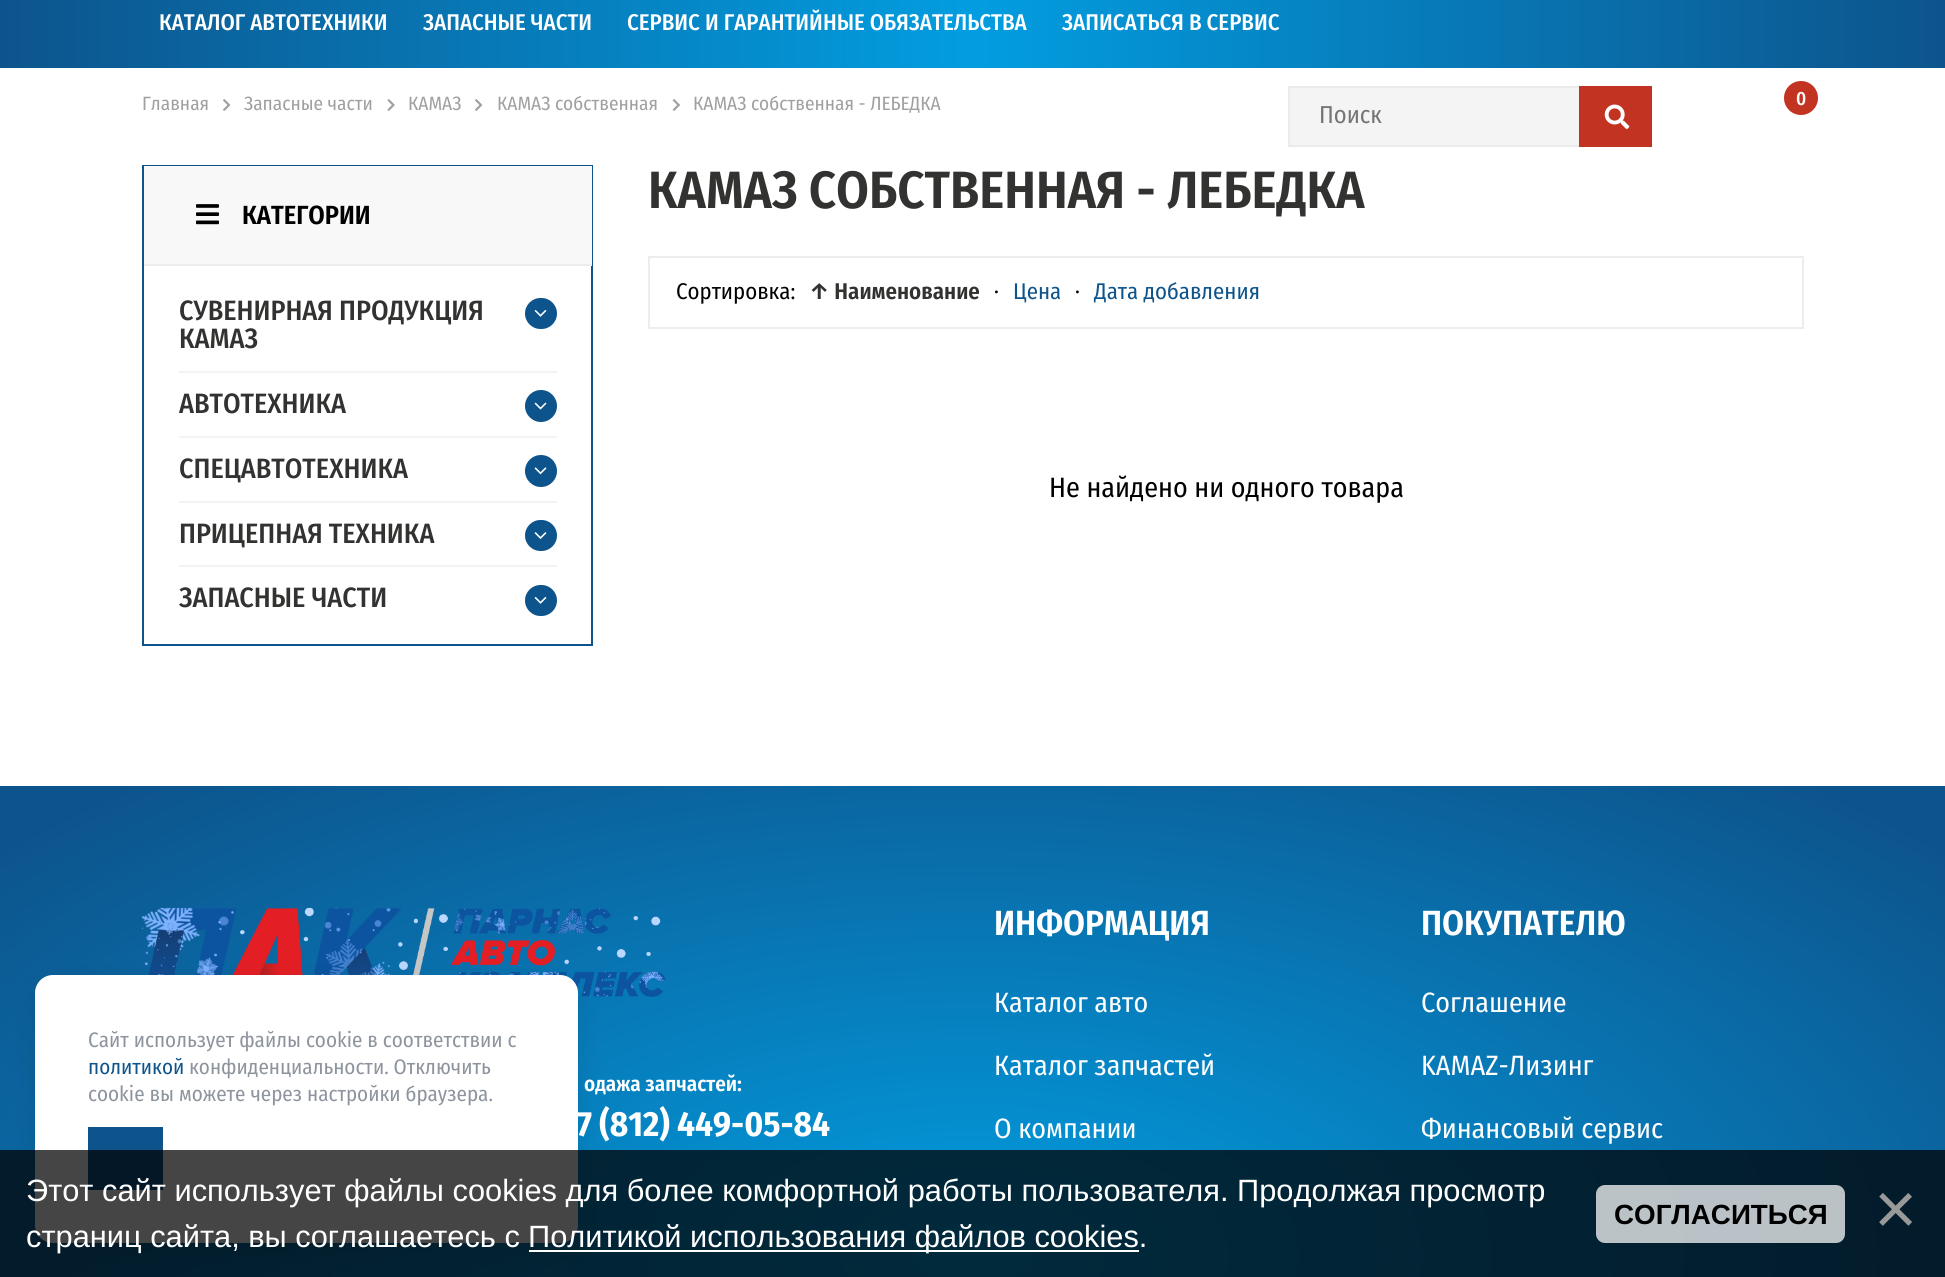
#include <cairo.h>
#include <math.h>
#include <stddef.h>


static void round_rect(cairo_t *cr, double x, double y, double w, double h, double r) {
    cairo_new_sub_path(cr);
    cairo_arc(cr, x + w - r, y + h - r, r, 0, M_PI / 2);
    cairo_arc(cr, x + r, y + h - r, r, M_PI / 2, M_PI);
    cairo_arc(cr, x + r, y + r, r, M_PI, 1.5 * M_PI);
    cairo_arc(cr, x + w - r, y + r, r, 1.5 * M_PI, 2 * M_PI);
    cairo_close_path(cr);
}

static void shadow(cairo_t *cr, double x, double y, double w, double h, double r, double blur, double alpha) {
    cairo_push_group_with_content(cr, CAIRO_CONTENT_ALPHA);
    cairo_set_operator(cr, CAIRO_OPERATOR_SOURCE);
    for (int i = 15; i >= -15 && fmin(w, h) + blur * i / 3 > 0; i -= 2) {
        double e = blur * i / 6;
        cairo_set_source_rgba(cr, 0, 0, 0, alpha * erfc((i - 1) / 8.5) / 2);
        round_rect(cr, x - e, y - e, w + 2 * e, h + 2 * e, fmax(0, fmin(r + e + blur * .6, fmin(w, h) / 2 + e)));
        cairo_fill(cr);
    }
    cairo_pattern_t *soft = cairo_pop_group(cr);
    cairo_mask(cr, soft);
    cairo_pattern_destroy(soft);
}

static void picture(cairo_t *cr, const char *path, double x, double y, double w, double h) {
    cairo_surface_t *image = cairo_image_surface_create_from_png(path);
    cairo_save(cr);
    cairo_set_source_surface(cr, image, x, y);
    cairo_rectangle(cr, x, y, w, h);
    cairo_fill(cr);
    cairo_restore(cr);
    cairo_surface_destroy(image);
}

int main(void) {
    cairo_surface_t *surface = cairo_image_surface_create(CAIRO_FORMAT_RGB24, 1945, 1277);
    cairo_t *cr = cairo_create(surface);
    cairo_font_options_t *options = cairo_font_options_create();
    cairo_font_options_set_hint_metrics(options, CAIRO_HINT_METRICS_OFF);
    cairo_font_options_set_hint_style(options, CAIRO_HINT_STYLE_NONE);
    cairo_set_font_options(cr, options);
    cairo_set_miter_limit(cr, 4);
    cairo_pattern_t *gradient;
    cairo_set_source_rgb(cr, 1, 1, 1);
    cairo_paint(cr);
    gradient = cairo_pattern_create_linear(0, 20, 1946, 20);
    cairo_pattern_add_color_stop_rgba(gradient, 0, 0.051, 0.329, 0.549, 1);
    cairo_pattern_add_color_stop_rgba(gradient, 0.5, 0.008, 0.616, 0.878, 1);
    cairo_pattern_add_color_stop_rgba(gradient, 1, 0.051, 0.329, 0.549, 1);
    cairo_set_source(cr, gradient);
    cairo_pattern_destroy(gradient);
    cairo_rectangle(cr, 0, 0, 1945, 68);
    cairo_fill(cr);
    cairo_select_font_face(cr, "Fira Sans Condensed Medium", CAIRO_FONT_SLANT_NORMAL, CAIRO_FONT_WEIGHT_NORMAL);
    cairo_set_font_size(cr, 22.75);
    cairo_set_source_rgb(cr, 1, 1, 1);
    cairo_move_to(cr, 159, 30);
    cairo_show_text(cr, "КАТАЛОГ АВТОТЕХНИКИ");
    cairo_move_to(cr, 423, 30);
    cairo_show_text(cr, "ЗАПАСНЫЕ ЧАСТИ");
    cairo_move_to(cr, 627, 30);
    cairo_show_text(cr, "СЕРВИС И ГАРАНТИЙНЫЕ ОБЯЗАТЕЛЬСТВА");
    cairo_move_to(cr, 1062, 30);
    cairo_show_text(cr, "ЗАПИСАТЬСЯ В СЕРВИС");
    cairo_set_source_rgb(cr, 0.761, 0.2, 0.133);
    cairo_new_path(cr);
    cairo_arc(cr, 1801, 98, 18, 0, 2 * M_PI);
    cairo_fill_preserve(cr);
    cairo_set_source_rgb(cr, 1, 1, 1);
    cairo_stroke(cr);
    cairo_set_font_size(cr, 19.25);
    cairo_move_to(cr, 1796, 105);
    cairo_show_text(cr, "0");
    cairo_set_source_rgb(cr, 0.957, 0.957, 0.957);
    cairo_rectangle(cr, 1290, 88, 289, 57);
    cairo_fill(cr);
    cairo_rectangle(cr, 1289, 87, 362, 59);
    cairo_set_source_rgb(cr, 0.918, 0.918, 0.918);
    cairo_stroke(cr);
    cairo_select_font_face(cr, "Fira Sans Condensed", CAIRO_FONT_SLANT_NORMAL, CAIRO_FONT_WEIGHT_NORMAL);
    cairo_set_font_size(cr, 24.5);
    cairo_set_source_rgb(cr, 0.459, 0.459, 0.459);
    cairo_move_to(cr, 1319, 123);
    cairo_show_text(cr, "Поиск");
    cairo_set_source_rgb(cr, 0.761, 0.2, 0.133);
    cairo_rectangle(cr, 1579, 86, 73, 61);
    cairo_fill(cr);
    picture(cr, "img1.png", 1604, 104, 26, 25);
    cairo_set_font_size(cr, 19.25);
    cairo_set_source_rgb(cr, 0.627, 0.627, 0.627);
    cairo_move_to(cr, 142, 110);
    cairo_show_text(cr, "Главная");
    picture(cr, "img2.png", 223, 99, 8, 12);
    cairo_move_to(cr, 244, 110);
    cairo_show_text(cr, "Запасные части");
    picture(cr, "img3.png", 387, 99, 8, 12);
    cairo_move_to(cr, 408, 110);
    cairo_show_text(cr, "КАМАЗ");
    picture(cr, "img2.png", 475, 99, 8, 12);
    cairo_move_to(cr, 497, 110);
    cairo_show_text(cr, "КАМАЗ собственная");
    picture(cr, "img4.png", 672, 99, 8, 12);
    cairo_move_to(cr, 693, 110);
    cairo_show_text(cr, "КАМАЗ собственная - ЛЕБЕДКА");
    cairo_rectangle(cr, 143, 166, 449, 479);
    cairo_set_source_rgb(cr, 0.051, 0.329, 0.549);
    cairo_stroke(cr);
    cairo_set_source_rgb(cr, 0.969, 0.969, 0.976);
    cairo_rectangle(cr, 144, 166, 448, 98);
    cairo_fill(cr);
    cairo_set_source_rgb(cr, 0.929, 0.929, 0.929);
    cairo_rectangle(cr, 144, 264, 448, 2);
    cairo_fill(cr);
    picture(cr, "img5.png", 196, 204, 23, 21);
    cairo_select_font_face(cr, "Fira Sans Condensed SemiBold", CAIRO_FONT_SLANT_NORMAL, CAIRO_FONT_WEIGHT_NORMAL);
    cairo_set_font_size(cr, 26.25);
    cairo_set_source_rgb(cr, 0, 0, 0);
    cairo_move_to(cr, 242, 224);
    cairo_show_text(cr, "КАТЕГОРИИ");
    cairo_set_source_rgb(cr, 0.957, 0.957, 0.957);
    cairo_rectangle(cr, 179, 371, 378, 2);
    cairo_fill(cr);
    cairo_select_font_face(cr, "Fira Sans Condensed Medium", CAIRO_FONT_SLANT_NORMAL, CAIRO_FONT_WEIGHT_NORMAL);
    cairo_set_font_size(cr, 28);
    cairo_set_source_rgb(cr, 0.196, 0.2, 0.192);
    cairo_move_to(cr, 179, 320);
    cairo_show_text(cr, "СУВЕНИРНАЯ ПРОДУКЦИЯ");
    cairo_set_source_rgb(cr, 0.051, 0.329, 0.549);
    round_rect(cr, 525, 298, 32, 31, 15.5);
    cairo_fill(cr);
    picture(cr, "img6.png", 534, 310, 13, 7);
    cairo_set_source_rgb(cr, 0.196, 0.2, 0.192);
    cairo_move_to(cr, 179, 348);
    cairo_show_text(cr, "КАМАЗ");
    cairo_set_source_rgb(cr, 0.957, 0.957, 0.957);
    cairo_rectangle(cr, 179, 436, 378, 2);
    cairo_fill(cr);
    cairo_set_source_rgb(cr, 0.196, 0.2, 0.192);
    cairo_move_to(cr, 179, 413);
    cairo_show_text(cr, "АВТОТЕХНИКА");
    cairo_set_source_rgb(cr, 0.051, 0.329, 0.549);
    cairo_new_path(cr);
    cairo_arc(cr, 541, 406, 16, 0, 2 * M_PI);
    cairo_fill(cr);
    picture(cr, "img7.png", 534, 402, 13, 8);
    cairo_set_source_rgb(cr, 0.957, 0.957, 0.957);
    cairo_rectangle(cr, 179, 501, 378, 2);
    cairo_fill(cr);
    cairo_set_source_rgb(cr, 0.196, 0.2, 0.192);
    cairo_move_to(cr, 179, 478);
    cairo_show_text(cr, "СПЕЦАВТОТЕХНИКА");
    cairo_set_source_rgb(cr, 0.051, 0.329, 0.549);
    cairo_new_path(cr);
    cairo_arc(cr, 541, 471, 16, 0, 2 * M_PI);
    cairo_fill(cr);
    picture(cr, "img8.png", 534, 467, 13, 8);
    cairo_set_source_rgb(cr, 0.957, 0.957, 0.957);
    cairo_rectangle(cr, 179, 565, 378, 2);
    cairo_fill(cr);
    cairo_set_source_rgb(cr, 0.196, 0.2, 0.192);
    cairo_move_to(cr, 179, 543);
    cairo_show_text(cr, "ПРИЦЕПНАЯ ТЕХНИКА");
    cairo_set_source_rgb(cr, 0.051, 0.329, 0.549);
    round_rect(cr, 525, 520, 32, 31, 15.5);
    cairo_fill(cr);
    picture(cr, "img9.png", 534, 532, 13, 7);
    cairo_set_source_rgb(cr, 0.196, 0.2, 0.192);
    cairo_move_to(cr, 179, 607);
    cairo_show_text(cr, "ЗАПАСНЫЕ ЧАСТИ");
    cairo_set_source_rgb(cr, 0.051, 0.329, 0.549);
    round_rect(cr, 525, 585, 32, 31, 15.5);
    cairo_fill(cr);
    picture(cr, "img6.png", 534, 597, 13, 7);
    cairo_select_font_face(cr, "Fira Sans Condensed SemiBold", CAIRO_FONT_SLANT_NORMAL, CAIRO_FONT_WEIGHT_NORMAL);
    cairo_set_font_size(cr, 52.5);
    cairo_set_source_rgb(cr, 0.196, 0.2, 0.192);
    cairo_move_to(cr, 648, 208);
    cairo_show_text(cr, "КАМАЗ СОБСТВЕННАЯ - ЛЕБЕДКА");
    cairo_rectangle(cr, 649, 257, 1154, 71);
    cairo_set_source_rgb(cr, 0.929, 0.929, 0.929);
    cairo_stroke(cr);
    cairo_select_font_face(cr, "Fira Sans Condensed", CAIRO_FONT_SLANT_NORMAL, CAIRO_FONT_WEIGHT_NORMAL);
    cairo_set_font_size(cr, 22.75);
    cairo_set_source_rgb(cr, 0, 0, 0);
    cairo_move_to(cr, 676, 299);
    cairo_show_text(cr, "Сортировка:");
    cairo_select_font_face(cr, "Fira Sans Condensed SemiBold", CAIRO_FONT_SLANT_NORMAL, CAIRO_FONT_WEIGHT_NORMAL);
    cairo_set_source_rgb(cr, 0.196, 0.2, 0.192);
    cairo_move_to(cr, 809, 299);
    cairo_show_text(cr, "↑ Наименование");
    cairo_select_font_face(cr, "Fira Sans Condensed", CAIRO_FONT_SLANT_NORMAL, CAIRO_FONT_WEIGHT_NORMAL);
    cairo_set_source_rgb(cr, 0, 0, 0);
    cairo_move_to(cr, 994, 299);
    cairo_show_text(cr, "·");
    cairo_set_source_rgb(cr, 0.051, 0.329, 0.549);
    cairo_move_to(cr, 1013, 299);
    cairo_show_text(cr, "Цена");
    cairo_set_source_rgb(cr, 0, 0, 0);
    cairo_move_to(cr, 1075, 299);
    cairo_show_text(cr, "·");
    cairo_set_source_rgb(cr, 0.051, 0.329, 0.549);
    cairo_move_to(cr, 1094, 299);
    cairo_show_text(cr, "Дата добавления");
    cairo_set_font_size(cr, 28);
    cairo_set_source_rgb(cr, 0, 0, 0);
    cairo_move_to(cr, 1049, 497);
    cairo_show_text(cr, "Не найдено ни одного товара");
    gradient = cairo_pattern_create_radial(0, 0, 0, 0, 0, 1);
    cairo_pattern_set_matrix(gradient, &(cairo_matrix_t){1.0 / 1376, 0, 0, 1.0 / 663, -1.0 * 973 / 1376, -1.0 * 1255 / 663});
    cairo_pattern_add_color_stop_rgba(gradient, 0, 0.008, 0.616, 0.878, 1);
    cairo_pattern_add_color_stop_rgba(gradient, 0.94, 0.051, 0.329, 0.549, 1);
    cairo_set_source(cr, gradient);
    cairo_pattern_destroy(gradient);
    cairo_rectangle(cr, 0, 786, 1945, 491);
    cairo_fill(cr);
    picture(cr, "img10.png", 141, 907, 525, 90);
    cairo_set_source_rgb(cr, 0, 0, 0);
    shadow(cr, 35, 984, 543, 267, 18, 13, 0.1);
    cairo_set_source_rgb(cr, 1, 1, 1);
    round_rect(cr, 35, 975, 543, 268, 18);
    cairo_fill(cr);
    cairo_set_font_size(cr, 21);
    cairo_set_source_rgb(cr, 0.553, 0.58, 0.62);
    cairo_move_to(cr, 88, 1047);
    cairo_show_text(cr, "Сайт использует файлы cookie в соответствии с");
    cairo_set_source_rgb(cr, 0.051, 0.329, 0.549);
    cairo_move_to(cr, 88, 1074);
    cairo_show_text(cr, "политикой");
    cairo_set_source_rgb(cr, 0.553, 0.58, 0.62);
    cairo_move_to(cr, 189, 1074);
    cairo_show_text(cr, "конфиденциальности. Отключить");
    cairo_move_to(cr, 88, 1101);
    cairo_show_text(cr, "cookie вы можете через настройки браузера.");
    cairo_set_source_rgb(cr, 0.051, 0.329, 0.549);
    cairo_rectangle(cr, 88, 1127, 75, 63);
    cairo_fill(cr);
    cairo_select_font_face(cr, "Fira Sans Condensed SemiBold", CAIRO_FONT_SLANT_NORMAL, CAIRO_FONT_WEIGHT_NORMAL);
    cairo_set_source_rgb(cr, 1, 1, 1);
    cairo_move_to(cr, 584, 1091);
    cairo_show_text(cr, "одажа запчастей:");
    cairo_select_font_face(cr, "Fira Sans Condensed", CAIRO_FONT_SLANT_NORMAL, CAIRO_FONT_WEIGHT_BOLD);
    cairo_set_font_size(cr, 35);
    cairo_move_to(cr, 577, 1136);
    cairo_show_text(cr, "7 (812) 449-05-84");
    cairo_select_font_face(cr, "Fira Sans Condensed SemiBold", CAIRO_FONT_SLANT_NORMAL, CAIRO_FONT_WEIGHT_NORMAL);
    cairo_move_to(cr, 994, 935);
    cairo_show_text(cr, "ИНФОРМАЦИЯ");
    cairo_select_font_face(cr, "Fira Sans Condensed", CAIRO_FONT_SLANT_NORMAL, CAIRO_FONT_WEIGHT_NORMAL);
    cairo_set_font_size(cr, 28);
    cairo_move_to(cr, 994, 1012);
    cairo_show_text(cr, "Каталог авто");
    cairo_move_to(cr, 994, 1075);
    cairo_show_text(cr, "Каталог запчастей");
    cairo_move_to(cr, 994, 1138);
    cairo_show_text(cr, "О компании");
    cairo_select_font_face(cr, "Fira Sans Condensed SemiBold", CAIRO_FONT_SLANT_NORMAL, CAIRO_FONT_WEIGHT_NORMAL);
    cairo_set_font_size(cr, 35);
    cairo_move_to(cr, 1421, 935);
    cairo_show_text(cr, "ПОКУПАТЕЛЮ");
    cairo_select_font_face(cr, "Fira Sans Condensed", CAIRO_FONT_SLANT_NORMAL, CAIRO_FONT_WEIGHT_NORMAL);
    cairo_set_font_size(cr, 28);
    cairo_move_to(cr, 1421, 1012);
    cairo_show_text(cr, "Соглашение");
    cairo_move_to(cr, 1421, 1075);
    cairo_show_text(cr, "KAMAZ-Лизинг");
    cairo_move_to(cr, 1421, 1138);
    cairo_show_text(cr, "Финансовый сервис");
    cairo_set_source_rgba(cr, 0, 0, 0, 0.73);
    cairo_rectangle(cr, 0, 1150, 1945, 127);
    cairo_fill(cr);
    cairo_select_font_face(cr, "Liberation Sans", CAIRO_FONT_SLANT_NORMAL, CAIRO_FONT_WEIGHT_NORMAL);
    cairo_set_font_size(cr, 30.8);
    cairo_set_source_rgb(cr, 1, 1, 1);
    cairo_move_to(cr, 26, 1201);
    cairo_show_text(cr, "Этот сайт использует файлы cookies для более комфортной работы пользователя. Продолжая просмотр");
    cairo_move_to(cr, 26, 1247);
    cairo_show_text(cr, "страниц сайта, вы соглашаетесь с");
    cairo_rectangle(cr, 529, 1250, 610, 2);
    cairo_fill(cr);
    cairo_move_to(cr, 528, 1247);
    cairo_show_text(cr, "Политикой использования файлов cookies.");
    cairo_set_source_rgba(cr, 1, 1, 1, 0.73);
    round_rect(cr, 1596, 1185, 249, 58, 9);
    cairo_fill(cr);
    cairo_select_font_face(cr, "Liberation Sans", CAIRO_FONT_SLANT_NORMAL, CAIRO_FONT_WEIGHT_BOLD);
    cairo_set_font_size(cr, 27.75);
    cairo_set_source_rgb(cr, 0, 0, 0);
    cairo_move_to(cr, 1614, 1224);
    cairo_show_text(cr, "СОГЛАСИТЬСЯ");
    cairo_select_font_face(cr, "Liberation Sans", CAIRO_FONT_SLANT_NORMAL, CAIRO_FONT_WEIGHT_NORMAL);
    cairo_set_font_size(cr, 74);
    cairo_set_source_rgb(cr, 0.6, 0.6, 0.6);
    cairo_move_to(cr, 1874, 1234);
    cairo_show_text(cr, "×");
    cairo_surface_write_to_png(surface, "page.png");
    cairo_font_options_destroy(options);
    cairo_destroy(cr);
    cairo_surface_destroy(surface);
    return 0;
}
